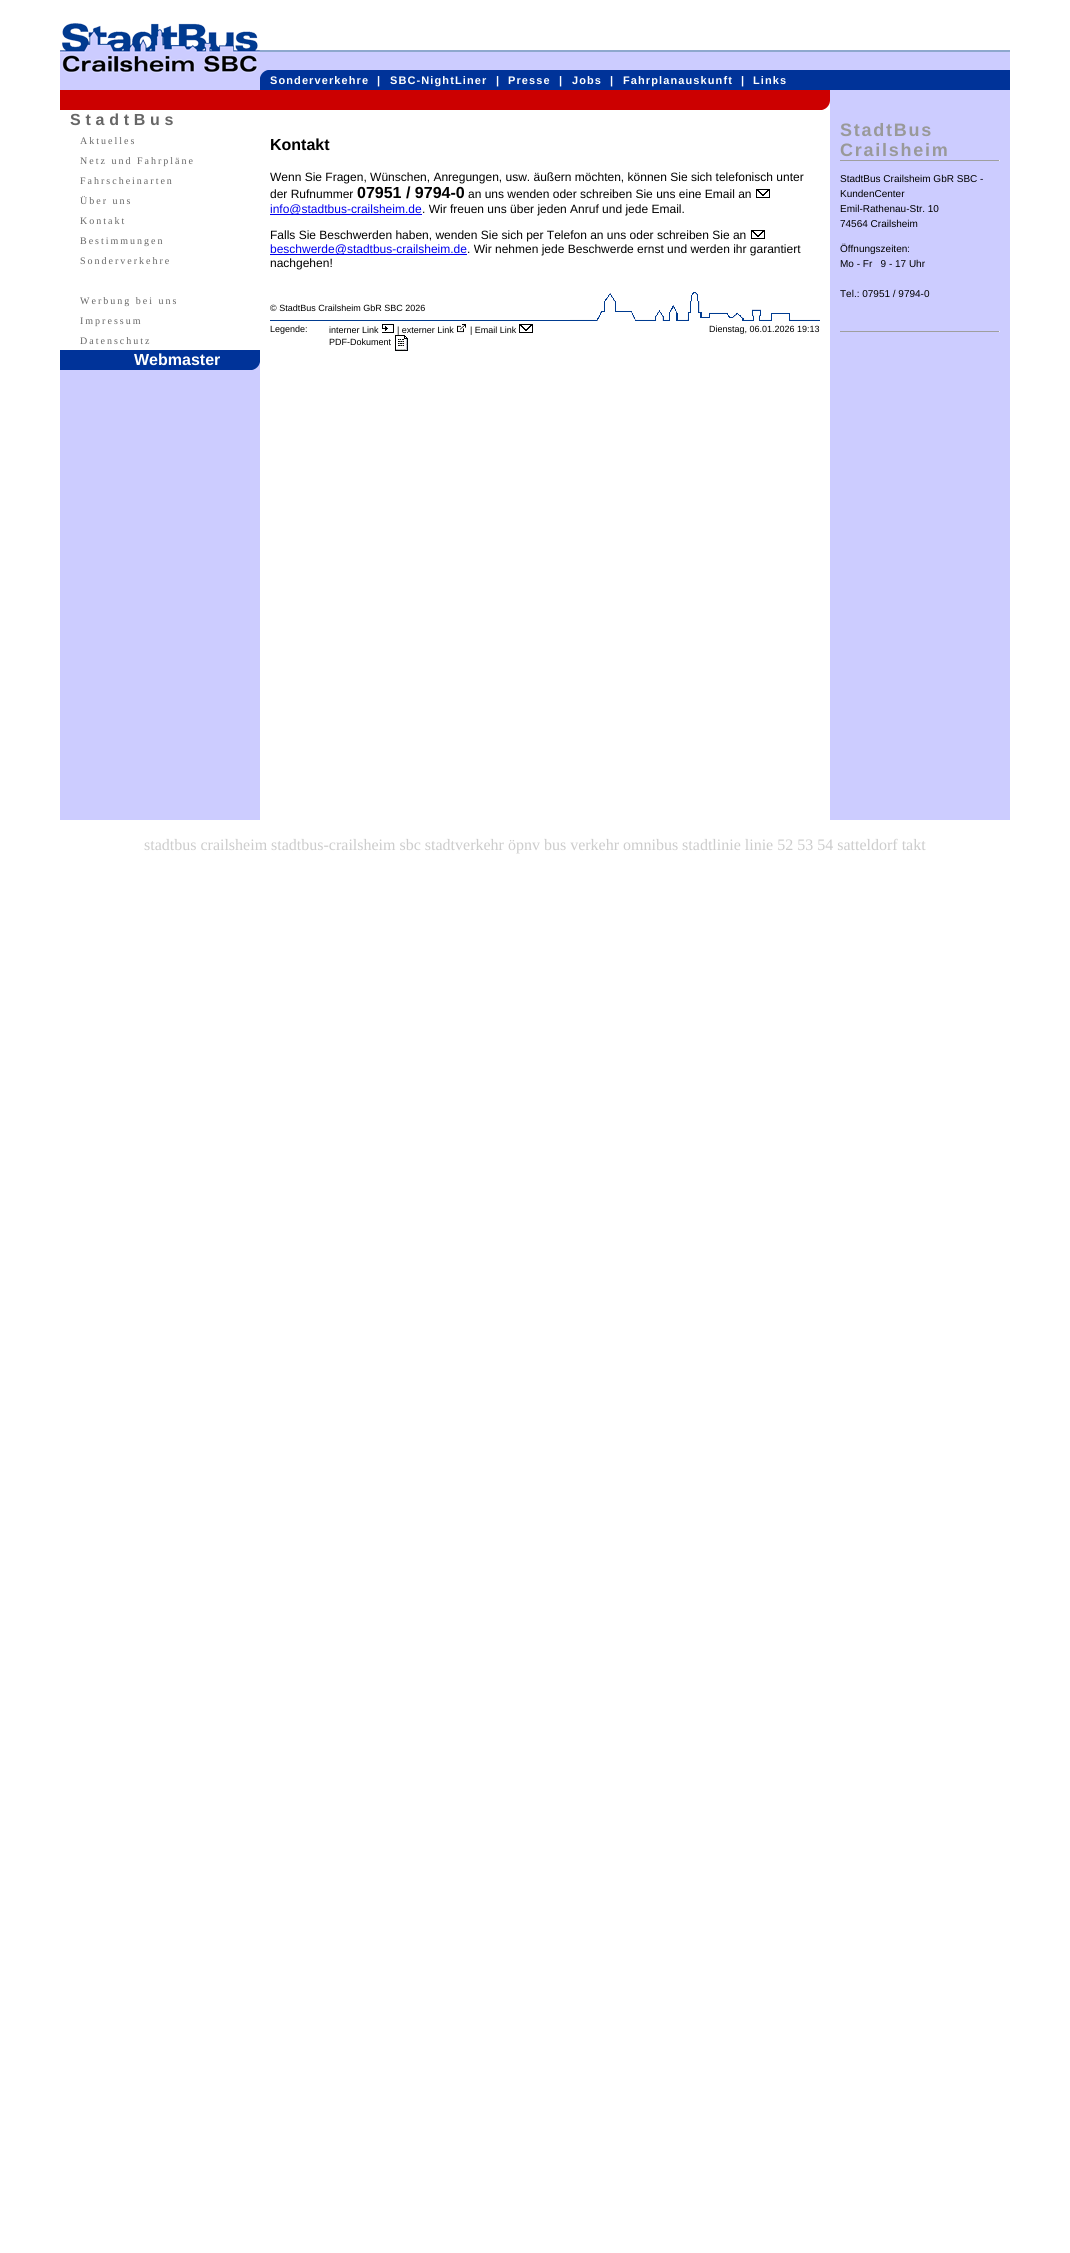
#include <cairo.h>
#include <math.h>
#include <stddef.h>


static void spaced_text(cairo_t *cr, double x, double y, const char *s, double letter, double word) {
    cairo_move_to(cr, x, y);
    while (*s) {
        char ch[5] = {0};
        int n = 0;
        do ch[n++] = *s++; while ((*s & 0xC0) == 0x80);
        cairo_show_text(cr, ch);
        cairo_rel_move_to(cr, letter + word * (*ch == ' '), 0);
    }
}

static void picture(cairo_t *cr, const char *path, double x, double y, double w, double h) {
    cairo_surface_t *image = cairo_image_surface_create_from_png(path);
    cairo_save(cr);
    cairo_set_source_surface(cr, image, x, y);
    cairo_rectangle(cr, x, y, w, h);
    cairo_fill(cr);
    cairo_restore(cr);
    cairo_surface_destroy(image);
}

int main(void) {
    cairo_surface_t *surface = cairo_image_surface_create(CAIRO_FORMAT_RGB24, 1070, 2253);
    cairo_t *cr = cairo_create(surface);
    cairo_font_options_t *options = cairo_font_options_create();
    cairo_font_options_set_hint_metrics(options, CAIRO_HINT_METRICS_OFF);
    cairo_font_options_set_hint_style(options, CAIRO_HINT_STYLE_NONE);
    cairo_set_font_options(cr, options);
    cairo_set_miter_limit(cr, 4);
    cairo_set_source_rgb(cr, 1, 1, 1);
    cairo_paint(cr);
    picture(cr, "img1.png", 60, 23, 200, 67);
    cairo_set_source_rgb(cr, 0.8, 0.8, 1);
    cairo_rectangle(cr, 260, 52, 570, 18);
    cairo_fill(cr);
    cairo_set_source_rgb(cr, 0.557, 0.659, 0.804);
    cairo_rectangle(cr, 260, 50, 750, 2);
    cairo_fill(cr);
    picture(cr, "img2.png", 260, 70, 10, 20);
    cairo_set_source_rgb(cr, 0, 0.2, 0.6);
    cairo_rectangle(cr, 270, 70, 560, 20);
    cairo_fill(cr);
    cairo_select_font_face(cr, "Liberation Sans", CAIRO_FONT_SLANT_NORMAL, CAIRO_FONT_WEIGHT_BOLD);
    cairo_set_font_size(cr, 11);
    cairo_set_source_rgb(cr, 1, 1, 1);
    spaced_text(cr, 270, 84, "Sonderverkehre", 1.1, 0);
    spaced_text(cr, 377, 84, "|", 1.1, 0);
    spaced_text(cr, 390, 84, "SBC-NightLiner", 1.1, 0);
    spaced_text(cr, 496, 84, "|", 1.1, 0);
    spaced_text(cr, 508, 84, "Presse", 1.1, 0);
    spaced_text(cr, 559, 84, "|", 1.1, 0);
    spaced_text(cr, 572, 84, "Jobs", 1.1, 0);
    spaced_text(cr, 610, 84, "|", 1.1, 0);
    spaced_text(cr, 623, 84, "Fahrplanauskunft", 1.1, 0);
    spaced_text(cr, 741, 84, "|", 1.1, 0);
    spaced_text(cr, 753, 84, "Links", 1.1, 0);
    cairo_set_source_rgb(cr, 0.8, 0, 0);
    cairo_rectangle(cr, 60, 90, 760, 20);
    cairo_fill(cr);
    picture(cr, "img3.png", 820, 90, 10, 20);
    cairo_set_source_rgb(cr, 0.8, 0.8, 1);
    cairo_rectangle(cr, 830, 52, 180, 768);
    cairo_fill(cr);
    cairo_set_source_rgb(cr, 0, 0.2, 0.6);
    cairo_rectangle(cr, 830, 70, 180, 20);
    cairo_fill(cr);
    cairo_set_source_rgb(cr, 0.8, 0.8, 1);
    cairo_rectangle(cr, 60, 370, 200, 450);
    cairo_fill(cr);
    cairo_set_font_size(cr, 16);
    cairo_set_source_rgb(cr, 0.4, 0.4, 0.4);
    spaced_text(cr, 70, 125, "StadtBus", 4.75, 0);
    cairo_select_font_face(cr, "Liberation Serif", CAIRO_FONT_SLANT_NORMAL, CAIRO_FONT_WEIGHT_NORMAL);
    cairo_set_font_size(cr, 10);
    spaced_text(cr, 80, 144, "Aktuelles", 2, 0);
    spaced_text(cr, 80, 164, "Netz und Fahrpläne", 2, 0);
    spaced_text(cr, 80, 184, "Fahrscheinarten", 2, 0);
    spaced_text(cr, 80, 204, "Über uns", 2, 0);
    spaced_text(cr, 80, 224, "Kontakt", 2, 0);
    spaced_text(cr, 80, 244, "Bestimmungen", 2, 0);
    spaced_text(cr, 80, 264, "Sonderverkehre", 2, 0);
    spaced_text(cr, 80, 304, "Werbung bei uns", 2, 0);
    spaced_text(cr, 80, 324, "Impressum", 2, 0);
    spaced_text(cr, 80, 344, "Datenschutz", 2, 0);
    cairo_set_source_rgb(cr, 0, 0.2, 0.6);
    cairo_rectangle(cr, 60, 350, 160, 20);
    cairo_fill(cr);
    cairo_select_font_face(cr, "Liberation Sans", CAIRO_FONT_SLANT_NORMAL, CAIRO_FONT_WEIGHT_BOLD);
    cairo_set_font_size(cr, 16);
    cairo_set_source_rgb(cr, 1, 1, 1);
    cairo_move_to(cr, 134, 365);
    cairo_show_text(cr, "Webmaster");
    picture(cr, "img4.png", 220, 350, 40, 20);
    cairo_set_source_rgb(cr, 0, 0, 0);
    cairo_move_to(cr, 270, 150);
    cairo_show_text(cr, "Kontakt");
    cairo_select_font_face(cr, "Liberation Sans", CAIRO_FONT_SLANT_NORMAL, CAIRO_FONT_WEIGHT_NORMAL);
    cairo_set_font_size(cr, 12);
    cairo_move_to(cr, 270, 181);
    cairo_show_text(cr, "Wenn Sie Fragen, Wünschen, Anregungen, usw. äußern möchten, können Sie sich telefonisch unter");
    cairo_move_to(cr, 270, 198);
    cairo_show_text(cr, "der Rufnummer");
    cairo_select_font_face(cr, "Liberation Sans", CAIRO_FONT_SLANT_NORMAL, CAIRO_FONT_WEIGHT_BOLD);
    cairo_set_font_size(cr, 16);
    cairo_move_to(cr, 357, 198);
    cairo_show_text(cr, "07951 / 9794-0");
    cairo_select_font_face(cr, "Liberation Sans", CAIRO_FONT_SLANT_NORMAL, CAIRO_FONT_WEIGHT_NORMAL);
    cairo_set_font_size(cr, 12);
    cairo_move_to(cr, 468, 198);
    cairo_show_text(cr, "an uns wenden oder schreiben Sie uns eine Email an");
    picture(cr, "img5.png", 756, 189, 14, 9);
    cairo_set_source_rgb(cr, 0, 0, 0.933);
    cairo_rectangle(cr, 270, 214, 152, 1);
    cairo_fill(cr);
    cairo_move_to(cr, 270, 213);
    cairo_show_text(cr, "info@stadtbus-crailsheim.de");
    cairo_set_source_rgb(cr, 0, 0, 0);
    cairo_move_to(cr, 422, 213);
    cairo_show_text(cr, ". Wir freuen uns über jeden Anruf und jede Email.");
    cairo_move_to(cr, 270, 239);
    cairo_show_text(cr, "Falls Sie Beschwerden haben, wenden Sie sich per Telefon an uns oder schreiben Sie an");
    picture(cr, "img5.png", 751, 230, 14, 9);
    cairo_set_source_rgb(cr, 0, 0, 0.933);
    cairo_rectangle(cr, 270, 254, 197, 1);
    cairo_fill(cr);
    cairo_move_to(cr, 270, 253);
    cairo_show_text(cr, "beschwerde@stadtbus-crailsheim.de");
    cairo_set_source_rgb(cr, 0, 0, 0);
    cairo_move_to(cr, 467, 253);
    cairo_show_text(cr, ". Wir nehmen jede Beschwerde ernst und werden ihr garantiert");
    cairo_move_to(cr, 270, 267);
    cairo_show_text(cr, "nachgehen!");
    picture(cr, "img6.png", 270, 292, 550, 29);
    cairo_set_font_size(cr, 9);
    cairo_move_to(cr, 270, 311);
    cairo_show_text(cr, "© StadtBus Crailsheim GbR SBC 2026");
    cairo_move_to(cr, 270, 332);
    cairo_show_text(cr, "Legende:");
    cairo_move_to(cr, 329, 333);
    cairo_show_text(cr, "interner Link");
    picture(cr, "img7.png", 382, 324, 12, 9);
    cairo_move_to(cr, 397, 333);
    cairo_show_text(cr, "| externer Link");
    picture(cr, "img8.png", 457, 324, 9, 9);
    cairo_move_to(cr, 470, 333);
    cairo_show_text(cr, "| Email Link");
    picture(cr, "img5.png", 519, 324, 14, 9);
    cairo_move_to(cr, 329, 345);
    cairo_show_text(cr, "PDF-Dokument");
    picture(cr, "img9.png", 395, 335, 13, 16);
    cairo_move_to(cr, 709, 332);
    cairo_show_text(cr, "Dienstag, 06.01.2026 19:13");
    cairo_select_font_face(cr, "Liberation Sans", CAIRO_FONT_SLANT_NORMAL, CAIRO_FONT_WEIGHT_BOLD);
    cairo_set_font_size(cr, 18);
    cairo_set_source_rgb(cr, 0.6, 0.6, 0.6);
    spaced_text(cr, 840, 136, "StadtBus", 1.75, 0);
    spaced_text(cr, 840, 156, "Crailsheim", 1.75, 0);
    cairo_set_source_rgb(cr, 0.624, 0.624, 0.624);
    cairo_rectangle(cr, 840, 160, 160, 1);
    cairo_fill(cr);
    cairo_set_source_rgb(cr, 0.933, 0.933, 0.933);
    cairo_rectangle(cr, 999, 160, 1, 1);
    cairo_fill(cr);
    cairo_select_font_face(cr, "Liberation Sans", CAIRO_FONT_SLANT_NORMAL, CAIRO_FONT_WEIGHT_NORMAL);
    cairo_set_font_size(cr, 10);
    cairo_set_source_rgb(cr, 0, 0, 0);
    cairo_move_to(cr, 840, 182);
    cairo_show_text(cr, "StadtBus Crailsheim GbR SBC -");
    cairo_move_to(cr, 840, 197);
    cairo_show_text(cr, "KundenCenter");
    cairo_move_to(cr, 840, 212);
    cairo_show_text(cr, "Emil-Rathenau-Str. 10");
    cairo_move_to(cr, 840, 227);
    cairo_show_text(cr, "74564 Crailsheim");
    cairo_move_to(cr, 840, 252);
    cairo_show_text(cr, "Öffnungszeiten:");
    cairo_move_to(cr, 840, 267);
    cairo_show_text(cr, "Mo - Fr   9 - 17 Uhr");
    cairo_move_to(cr, 840, 297);
    cairo_show_text(cr, "Tel.: 07951 / 9794-0");
    cairo_set_source_rgb(cr, 0.624, 0.624, 0.624);
    cairo_rectangle(cr, 840, 331, 160, 1);
    cairo_fill(cr);
    cairo_set_source_rgb(cr, 0.933, 0.933, 0.933);
    cairo_rectangle(cr, 999, 331, 1, 1);
    cairo_fill(cr);
    cairo_select_font_face(cr, "Liberation Serif", CAIRO_FONT_SLANT_NORMAL, CAIRO_FONT_WEIGHT_NORMAL);
    cairo_set_font_size(cr, 16);
    cairo_set_source_rgb(cr, 0.8, 0.8, 0.8);
    cairo_move_to(cr, 144, 850);
    cairo_show_text(cr, "stadtbus crailsheim stadtbus-crailsheim sbc stadtverkehr öpnv bus verkehr omnibus stadtlinie linie 52 53 54 satteldorf takt");
    cairo_surface_write_to_png(surface, "page.png");
    cairo_font_options_destroy(options);
    cairo_destroy(cr);
    cairo_surface_destroy(surface);
    return 0;
}
